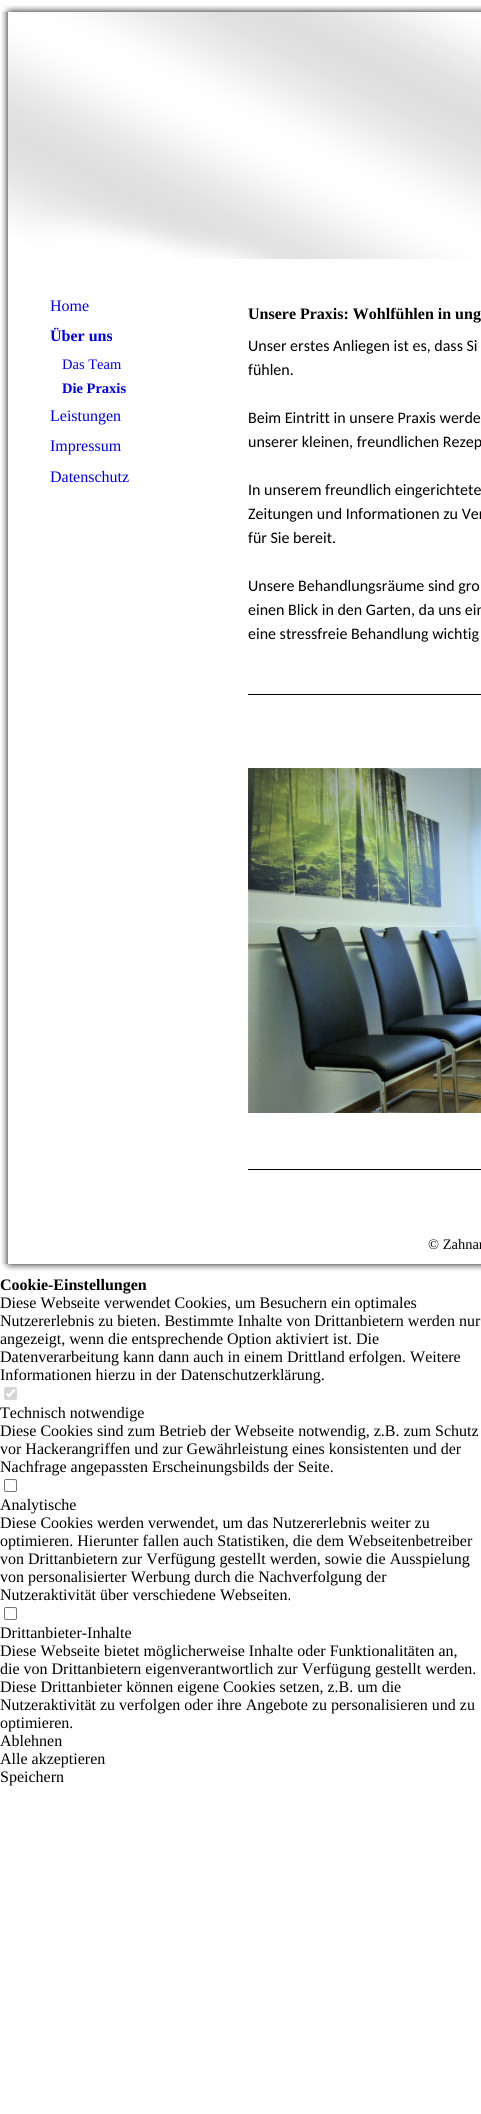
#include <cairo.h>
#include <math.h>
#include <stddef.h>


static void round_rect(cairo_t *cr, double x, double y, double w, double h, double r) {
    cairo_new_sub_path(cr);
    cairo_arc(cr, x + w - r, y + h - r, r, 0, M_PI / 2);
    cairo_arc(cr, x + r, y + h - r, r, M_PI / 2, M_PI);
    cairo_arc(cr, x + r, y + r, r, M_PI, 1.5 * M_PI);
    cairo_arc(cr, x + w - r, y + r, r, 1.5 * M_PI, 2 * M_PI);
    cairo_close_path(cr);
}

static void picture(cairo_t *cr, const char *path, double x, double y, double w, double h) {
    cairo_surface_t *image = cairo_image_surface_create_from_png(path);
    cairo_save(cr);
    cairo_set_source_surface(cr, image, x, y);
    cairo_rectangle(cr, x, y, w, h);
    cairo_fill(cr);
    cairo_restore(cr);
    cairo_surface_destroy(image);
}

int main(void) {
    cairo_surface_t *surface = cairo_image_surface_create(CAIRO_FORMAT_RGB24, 481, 2114);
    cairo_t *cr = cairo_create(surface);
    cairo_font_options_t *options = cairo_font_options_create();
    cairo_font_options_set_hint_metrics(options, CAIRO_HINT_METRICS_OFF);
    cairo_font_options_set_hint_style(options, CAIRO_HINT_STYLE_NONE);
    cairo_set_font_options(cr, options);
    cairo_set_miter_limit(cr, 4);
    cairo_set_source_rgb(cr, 1, 1, 1);
    cairo_paint(cr);
    picture(cr, "img1.png", 2, 5, 479, 7);
    picture(cr, "img2.png", 1, 12, 7, 1252);
    picture(cr, "img3.png", 8, 12, 473, 247);
    cairo_select_font_face(cr, "Liberation Serif", CAIRO_FONT_SLANT_NORMAL, CAIRO_FONT_WEIGHT_NORMAL);
    cairo_set_font_size(cr, 16);
    cairo_set_source_rgb(cr, 0, 0, 0.933);
    cairo_move_to(cr, 50, 311);
    cairo_show_text(cr, "Home");
    cairo_select_font_face(cr, "Liberation Serif", CAIRO_FONT_SLANT_NORMAL, CAIRO_FONT_WEIGHT_BOLD);
    cairo_move_to(cr, 50, 341);
    cairo_show_text(cr, "Über uns");
    cairo_select_font_face(cr, "Liberation Serif", CAIRO_FONT_SLANT_NORMAL, CAIRO_FONT_WEIGHT_NORMAL);
    cairo_set_font_size(cr, 14.5);
    cairo_move_to(cr, 62, 369);
    cairo_show_text(cr, "Das Team");
    cairo_select_font_face(cr, "Liberation Serif", CAIRO_FONT_SLANT_NORMAL, CAIRO_FONT_WEIGHT_BOLD);
    cairo_move_to(cr, 62, 393);
    cairo_show_text(cr, "Die Praxis");
    cairo_select_font_face(cr, "Liberation Serif", CAIRO_FONT_SLANT_NORMAL, CAIRO_FONT_WEIGHT_NORMAL);
    cairo_set_font_size(cr, 16);
    cairo_move_to(cr, 50, 421);
    cairo_show_text(cr, "Leistungen");
    cairo_move_to(cr, 50, 451);
    cairo_show_text(cr, "Impressum");
    cairo_move_to(cr, 50, 482);
    cairo_show_text(cr, "Datenschutz");
    cairo_select_font_face(cr, "Liberation Serif", CAIRO_FONT_SLANT_NORMAL, CAIRO_FONT_WEIGHT_BOLD);
    cairo_set_source_rgb(cr, 0, 0, 0);
    cairo_move_to(cr, 248, 319);
    cairo_show_text(cr, "Unsere Praxis: Wohlfühlen in ung");
    cairo_select_font_face(cr, "Carlito", CAIRO_FONT_SLANT_NORMAL, CAIRO_FONT_WEIGHT_NORMAL);
    cairo_move_to(cr, 248, 351);
    cairo_show_text(cr, "Unser erstes Anliegen ist es, dass Si");
    cairo_move_to(cr, 248, 375);
    cairo_show_text(cr, "fühlen.");
    cairo_move_to(cr, 248, 423);
    cairo_show_text(cr, "Beim Eintritt in unsere Praxis werde");
    cairo_move_to(cr, 248, 447);
    cairo_show_text(cr, "unserer kleinen, freundlichen Rezep");
    cairo_move_to(cr, 248, 495);
    cairo_show_text(cr, "In unserem freundlich eingerichtete");
    cairo_move_to(cr, 248, 519);
    cairo_show_text(cr, "Zeitungen und Informationen zu Ver");
    cairo_move_to(cr, 248, 543);
    cairo_show_text(cr, "für Sie bereit.");
    cairo_move_to(cr, 248, 591);
    cairo_show_text(cr, "Unsere Behandlungsräume sind gro");
    cairo_move_to(cr, 248, 615);
    cairo_show_text(cr, "einen Blick in den Garten, da uns ein");
    cairo_move_to(cr, 248, 639);
    cairo_show_text(cr, "eine stressfreie Behandlung wichtig");
    cairo_rectangle(cr, 248, 694, 233, 1);
    cairo_fill(cr);
    picture(cr, "img4.png", 248, 768, 233, 345);
    cairo_rectangle(cr, 248, 1169, 233, 1);
    cairo_fill(cr);
    cairo_select_font_face(cr, "Liberation Serif", CAIRO_FONT_SLANT_NORMAL, CAIRO_FONT_WEIGHT_NORMAL);
    cairo_set_font_size(cr, 14.5);
    cairo_move_to(cr, 428, 1249);
    cairo_show_text(cr, "© Zahnar");
    picture(cr, "img5.png", 2, 1264, 479, 7);
    cairo_select_font_face(cr, "Liberation Serif", CAIRO_FONT_SLANT_NORMAL, CAIRO_FONT_WEIGHT_BOLD);
    cairo_set_font_size(cr, 16);
    cairo_move_to(cr, 0, 1290);
    cairo_show_text(cr, "Cookie-Einstellungen");
    cairo_select_font_face(cr, "Liberation Serif", CAIRO_FONT_SLANT_NORMAL, CAIRO_FONT_WEIGHT_NORMAL);
    cairo_move_to(cr, 0, 1308);
    cairo_show_text(cr, "Diese Webseite verwendet Cookies, um Besuchern ein optimales");
    cairo_move_to(cr, 0, 1326);
    cairo_show_text(cr, "Nutzererlebnis zu bieten. Bestimmte Inhalte von Drittanbietern werden nur");
    cairo_move_to(cr, 0, 1344);
    cairo_show_text(cr, "angezeigt, wenn die entsprechende Option aktiviert ist. Die");
    cairo_move_to(cr, 0, 1362);
    cairo_show_text(cr, "Datenverarbeitung kann dann auch in einem Drittland erfolgen. Weitere");
    cairo_move_to(cr, 0, 1380);
    cairo_show_text(cr, "Informationen hierzu in der Datenschutzerklärung.");
    cairo_set_source_rgb(cr, 0.839, 0.839, 0.839);
    round_rect(cr, 4, 1387, 13, 13, 2);
    cairo_fill(cr);
    cairo_new_path(cr);
    cairo_move_to(cr, 6.5, 1393.5);
    cairo_line_to(cr, 9, 1396);
    cairo_line_to(cr, 14.5, 1389.5);
    cairo_set_source_rgb(cr, 1, 1, 1);
    cairo_set_line_width(cr, 2.1);
    cairo_stroke(cr);
    cairo_set_source_rgb(cr, 0, 0, 0);
    cairo_move_to(cr, 0, 1418);
    cairo_show_text(cr, "Technisch notwendige");
    cairo_move_to(cr, 0, 1436);
    cairo_show_text(cr, "Diese Cookies sind zum Betrieb der Webseite notwendig, z.B. zum Schutz");
    cairo_move_to(cr, 0, 1454);
    cairo_show_text(cr, "vor Hackerangriffen und zur Gewährleistung eines konsistenten und der");
    cairo_move_to(cr, 0, 1472);
    cairo_show_text(cr, "Nachfrage angepassten Erscheinungsbilds der Seite.");
    round_rect(cr, 4.5, 1479.5, 12, 12, 1.5);
    cairo_set_source_rgb(cr, 0.463, 0.463, 0.463);
    cairo_set_line_width(cr, 1);
    cairo_stroke(cr);
    cairo_set_source_rgb(cr, 0, 0, 0);
    cairo_move_to(cr, 0, 1510);
    cairo_show_text(cr, "Analytische");
    cairo_move_to(cr, 0, 1528);
    cairo_show_text(cr, "Diese Cookies werden verwendet, um das Nutzererlebnis weiter zu");
    cairo_move_to(cr, 0, 1546);
    cairo_show_text(cr, "optimieren. Hierunter fallen auch Statistiken, die dem Webseitenbetreiber");
    cairo_move_to(cr, 0, 1564);
    cairo_show_text(cr, "von Drittanbietern zur Verfügung gestellt werden, sowie die Ausspielung");
    cairo_move_to(cr, 0, 1582);
    cairo_show_text(cr, "von personalisierter Werbung durch die Nachverfolgung der");
    cairo_move_to(cr, 0, 1600);
    cairo_show_text(cr, "Nutzeraktivität über verschiedene Webseiten.");
    round_rect(cr, 4.5, 1607.5, 12, 12, 1.5);
    cairo_set_source_rgb(cr, 0.463, 0.463, 0.463);
    cairo_stroke(cr);
    cairo_set_source_rgb(cr, 0, 0, 0);
    cairo_move_to(cr, 0, 1638);
    cairo_show_text(cr, "Drittanbieter-Inhalte");
    cairo_move_to(cr, 0, 1656);
    cairo_show_text(cr, "Diese Webseite bietet möglicherweise Inhalte oder Funktionalitäten an,");
    cairo_move_to(cr, 0, 1674);
    cairo_show_text(cr, "die von Drittanbietern eigenverantwortlich zur Verfügung gestellt werden.");
    cairo_move_to(cr, 0, 1692);
    cairo_show_text(cr, "Diese Drittanbieter können eigene Cookies setzen, z.B. um die");
    cairo_move_to(cr, 0, 1710);
    cairo_show_text(cr, "Nutzeraktivität zu verfolgen oder ihre Angebote zu personalisieren und zu");
    cairo_move_to(cr, 0, 1728);
    cairo_show_text(cr, "optimieren.");
    cairo_move_to(cr, 0, 1746);
    cairo_show_text(cr, "Ablehnen");
    cairo_move_to(cr, 0, 1764);
    cairo_show_text(cr, "Alle akzeptieren");
    cairo_move_to(cr, 0, 1782);
    cairo_show_text(cr, "Speichern");
    cairo_surface_write_to_png(surface, "page.png");
    cairo_font_options_destroy(options);
    cairo_destroy(cr);
    cairo_surface_destroy(surface);
    return 0;
}
